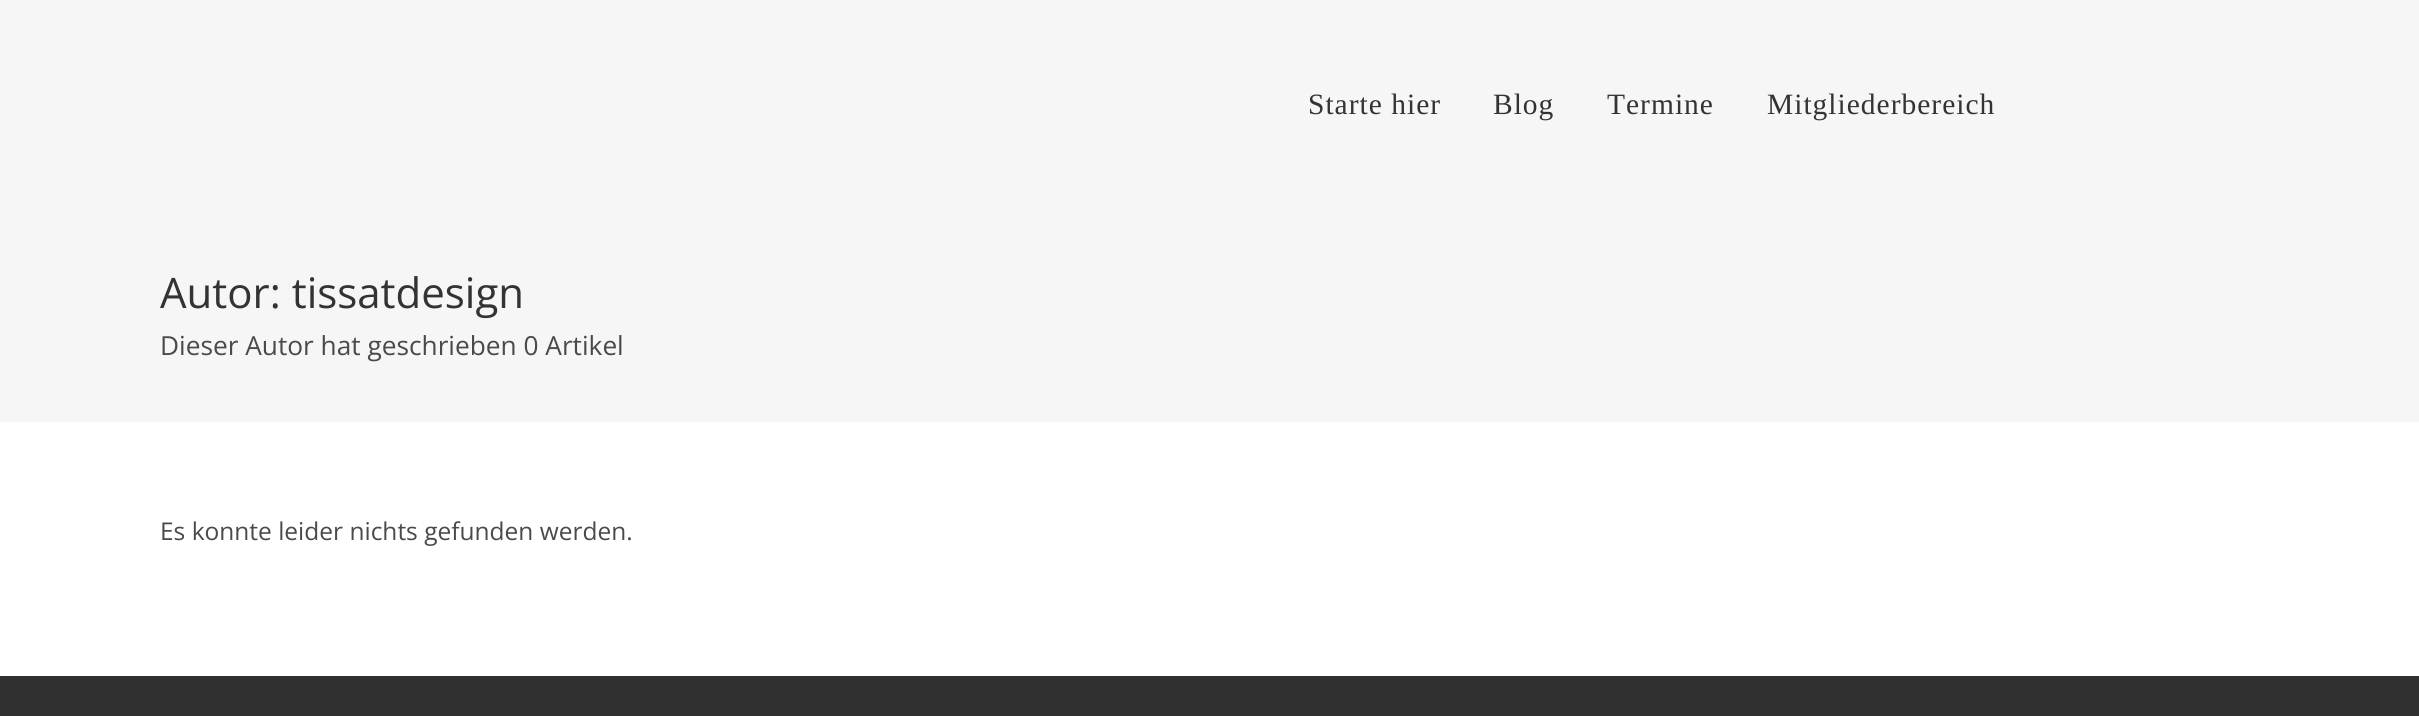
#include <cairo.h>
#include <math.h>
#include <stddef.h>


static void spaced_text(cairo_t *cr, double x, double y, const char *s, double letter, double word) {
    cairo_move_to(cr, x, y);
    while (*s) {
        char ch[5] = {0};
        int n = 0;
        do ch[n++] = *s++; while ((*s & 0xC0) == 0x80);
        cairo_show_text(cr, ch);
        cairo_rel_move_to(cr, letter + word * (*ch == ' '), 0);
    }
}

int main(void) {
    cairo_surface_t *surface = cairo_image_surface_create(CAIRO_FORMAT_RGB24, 2419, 716);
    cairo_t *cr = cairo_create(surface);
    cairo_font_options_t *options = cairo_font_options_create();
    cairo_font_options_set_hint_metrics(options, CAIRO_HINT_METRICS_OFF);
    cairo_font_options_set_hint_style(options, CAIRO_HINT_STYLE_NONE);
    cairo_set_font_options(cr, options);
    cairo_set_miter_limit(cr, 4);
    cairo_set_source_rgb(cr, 1, 1, 1);
    cairo_paint(cr);
    cairo_set_source_rgb(cr, 0.961, 0.961, 0.961);
    cairo_rectangle(cr, 0, 0, 2419, 422);
    cairo_fill(cr);
    cairo_select_font_face(cr, "Liberation Serif", CAIRO_FONT_SLANT_NORMAL, CAIRO_FONT_WEIGHT_NORMAL);
    cairo_set_font_size(cr, 29.5);
    cairo_set_source_rgb(cr, 0.2, 0.2, 0.2);
    spaced_text(cr, 1308, 114, "Starte hier", 1, 0);
    spaced_text(cr, 1493, 114, "Blog", 1, 0);
    spaced_text(cr, 1607, 114, "Termine", 1, 0);
    spaced_text(cr, 1767, 114, "Mitgliederbereich", 1, 0);
    cairo_select_font_face(cr, "Open Sans", CAIRO_FONT_SLANT_NORMAL, CAIRO_FONT_WEIGHT_NORMAL);
    cairo_set_font_size(cr, 42);
    cairo_move_to(cr, 160, 308);
    cairo_show_text(cr, "Autor: tissatdesign");
    cairo_set_font_size(cr, 26.25);
    cairo_set_source_rgb(cr, 0.29, 0.29, 0.29);
    cairo_move_to(cr, 160, 355);
    cairo_show_text(cr, "Dieser Autor hat geschrieben 0 Artikel");
    cairo_set_font_size(cr, 24.5);
    cairo_move_to(cr, 160, 540);
    cairo_show_text(cr, "Es konnte leider nichts gefunden werden.");
    cairo_set_source_rgb(cr, 0.188, 0.188, 0.188);
    cairo_rectangle(cr, 0, 676, 2419, 40);
    cairo_fill(cr);
    cairo_surface_write_to_png(surface, "page.png");
    cairo_font_options_destroy(options);
    cairo_destroy(cr);
    cairo_surface_destroy(surface);
    return 0;
}
